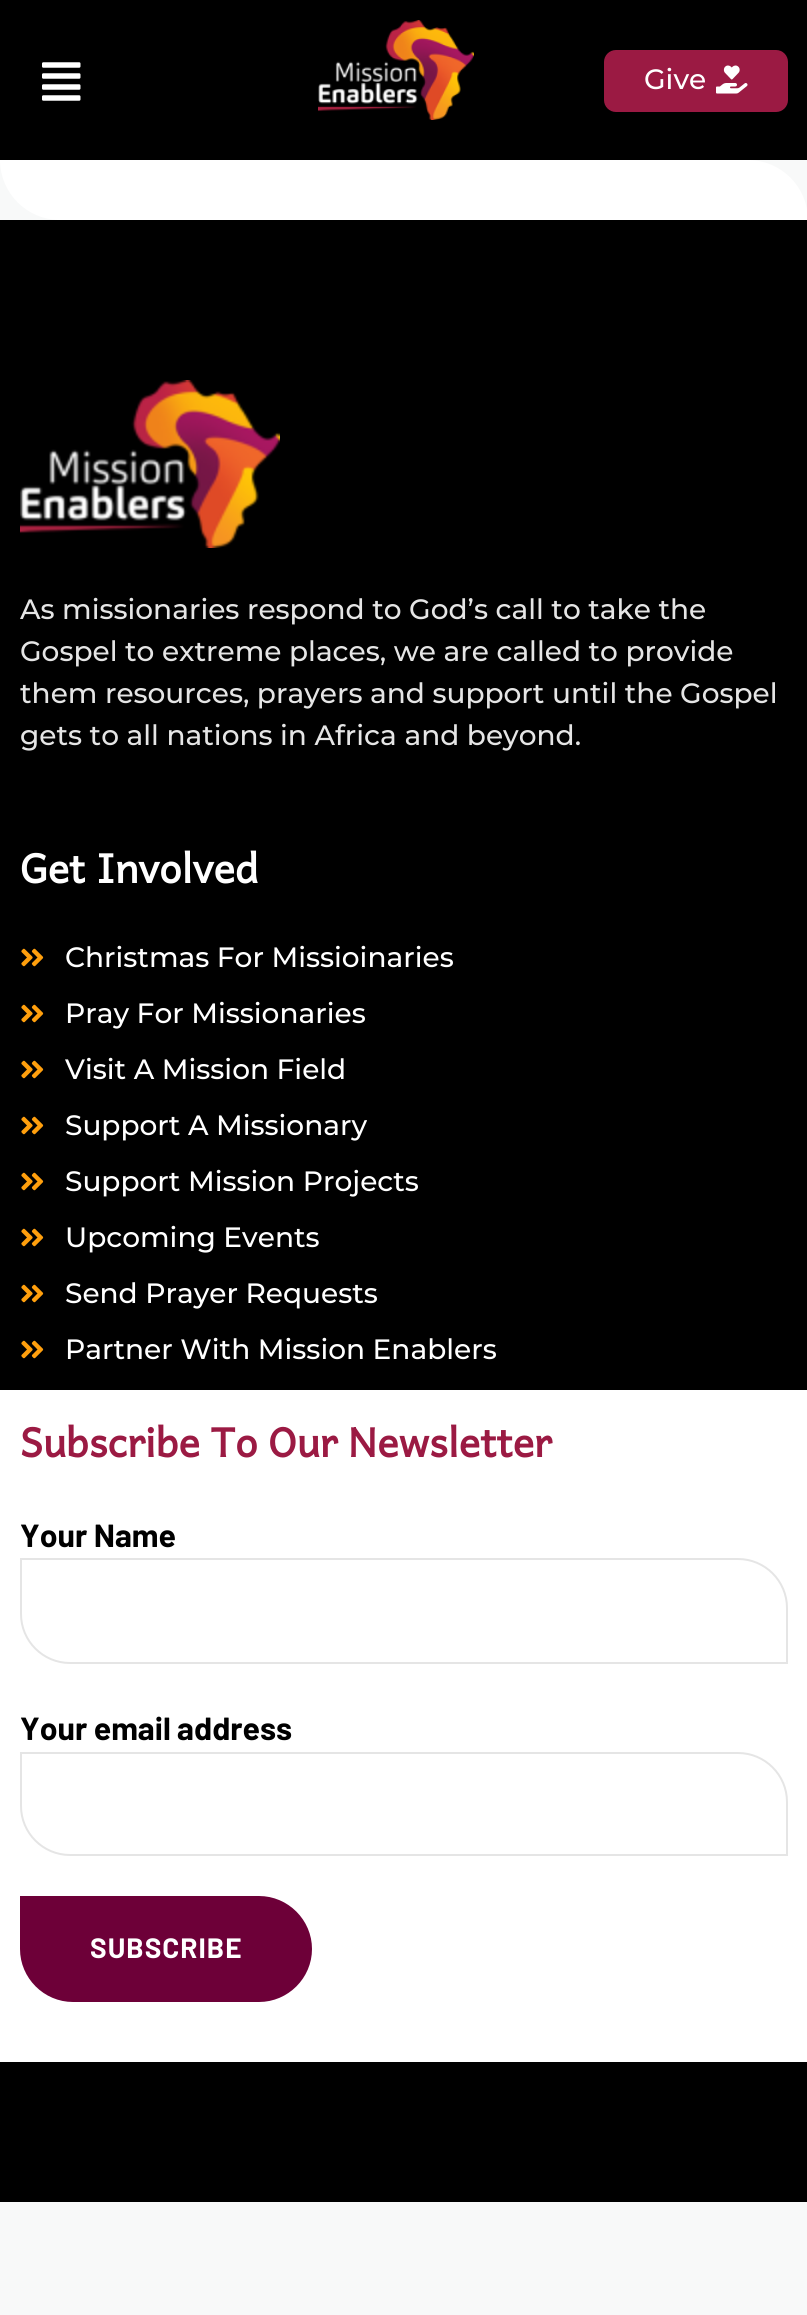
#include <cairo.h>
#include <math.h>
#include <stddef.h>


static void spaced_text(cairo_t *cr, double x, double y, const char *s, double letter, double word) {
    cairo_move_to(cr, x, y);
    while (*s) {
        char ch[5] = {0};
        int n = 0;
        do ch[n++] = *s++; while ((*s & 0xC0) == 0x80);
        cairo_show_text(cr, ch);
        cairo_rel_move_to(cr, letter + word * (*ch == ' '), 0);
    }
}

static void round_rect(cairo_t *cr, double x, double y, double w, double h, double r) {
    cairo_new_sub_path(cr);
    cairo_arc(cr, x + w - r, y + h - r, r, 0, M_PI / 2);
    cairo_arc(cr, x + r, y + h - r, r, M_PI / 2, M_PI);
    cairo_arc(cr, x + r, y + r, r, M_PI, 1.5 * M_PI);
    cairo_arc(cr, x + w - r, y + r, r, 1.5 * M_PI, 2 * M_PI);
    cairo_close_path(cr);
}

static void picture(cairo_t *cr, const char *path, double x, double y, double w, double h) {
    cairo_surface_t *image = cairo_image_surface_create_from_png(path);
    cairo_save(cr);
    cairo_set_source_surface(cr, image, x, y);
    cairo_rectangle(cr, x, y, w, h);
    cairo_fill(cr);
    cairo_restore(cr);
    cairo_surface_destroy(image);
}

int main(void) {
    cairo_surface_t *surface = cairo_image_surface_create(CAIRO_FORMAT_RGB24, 807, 2315);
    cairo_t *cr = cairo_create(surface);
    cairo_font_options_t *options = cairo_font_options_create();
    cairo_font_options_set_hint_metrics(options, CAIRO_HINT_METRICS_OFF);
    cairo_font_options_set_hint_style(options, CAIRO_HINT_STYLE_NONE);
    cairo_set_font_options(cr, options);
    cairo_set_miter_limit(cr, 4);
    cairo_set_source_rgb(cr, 0.969, 0.973, 0.976);
    cairo_paint(cr);
    cairo_set_source_rgb(cr, 0, 0, 0);
    cairo_rectangle(cr, 0, 0, 807, 160);
    cairo_fill(cr);
    picture(cr, "img1.png", 42, 62, 39, 39);
    picture(cr, "img2.png", 318, 20, 156, 100);
    cairo_set_source_rgb(cr, 0.608, 0.102, 0.263);
    round_rect(cr, 604, 50, 184, 62, 12);
    cairo_fill(cr);
    cairo_select_font_face(cr, "Montserrat Medium", CAIRO_FONT_SLANT_NORMAL, CAIRO_FONT_WEIGHT_NORMAL);
    cairo_set_font_size(cr, 28);
    cairo_set_source_rgb(cr, 1, 1, 1);
    cairo_move_to(cr, 644, 89);
    cairo_show_text(cr, "Give");
    picture(cr, "img3.png", 716, 65, 32, 29);
    cairo_new_path(cr);
    cairo_move_to(cr, 0, 160);
    cairo_line_to(cr, 748, 160);
    cairo_curve_to(cr, 781, 160, 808, 187, 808, 220);
    cairo_line_to(cr, 60, 220);
    cairo_curve_to(cr, 27, 220, 0, 193, 0, 160);
    cairo_close_path(cr);
    cairo_fill(cr);
    cairo_set_source_rgb(cr, 0, 0, 0);
    cairo_rectangle(cr, 0, 220, 807, 1982);
    cairo_fill(cr);
    picture(cr, "img4.png", 20, 380, 260, 168);
    cairo_set_source_rgb(cr, 0.898, 0.898, 0.898);
    cairo_move_to(cr, 20, 619);
    cairo_show_text(cr, "As missionaries respond to God’s call to take the");
    cairo_move_to(cr, 20, 661);
    cairo_show_text(cr, "Gospel to extreme places, we are called to provide");
    cairo_move_to(cr, 20, 703);
    cairo_show_text(cr, "them resources, prayers and support until the Gospel");
    cairo_move_to(cr, 20, 745);
    cairo_show_text(cr, "gets to all nations in Africa and beyond.");
    cairo_select_font_face(cr, "Andika", CAIRO_FONT_SLANT_NORMAL, CAIRO_FONT_WEIGHT_BOLD);
    cairo_set_font_size(cr, 40);
    cairo_set_source_rgb(cr, 1, 1, 1);
    cairo_move_to(cr, 20, 883);
    cairo_show_text(cr, "Get Involved");
    picture(cr, "img5.png", 21, 948, 23, 19);
    cairo_select_font_face(cr, "Montserrat Medium", CAIRO_FONT_SLANT_NORMAL, CAIRO_FONT_WEIGHT_NORMAL);
    cairo_set_font_size(cr, 28);
    cairo_move_to(cr, 65, 967);
    cairo_show_text(cr, "Christmas For Missioinaries");
    picture(cr, "img5.png", 21, 1004, 23, 19);
    cairo_move_to(cr, 65, 1023);
    cairo_show_text(cr, "Pray For Missionaries");
    picture(cr, "img5.png", 21, 1060, 23, 19);
    cairo_move_to(cr, 65, 1079);
    cairo_show_text(cr, "Visit A Mission Field");
    picture(cr, "img5.png", 21, 1116, 23, 19);
    cairo_move_to(cr, 65, 1135);
    cairo_show_text(cr, "Support A Missionary");
    picture(cr, "img5.png", 21, 1172, 23, 19);
    cairo_move_to(cr, 65, 1191);
    cairo_show_text(cr, "Support Mission Projects");
    picture(cr, "img5.png", 21, 1228, 23, 19);
    cairo_move_to(cr, 65, 1247);
    cairo_show_text(cr, "Upcoming Events");
    picture(cr, "img5.png", 21, 1284, 23, 19);
    cairo_move_to(cr, 65, 1303);
    cairo_show_text(cr, "Send Prayer Requests");
    picture(cr, "img5.png", 21, 1340, 23, 19);
    cairo_move_to(cr, 65, 1359);
    cairo_show_text(cr, "Partner With Mission Enablers");
    cairo_rectangle(cr, 0, 1390, 807, 672);
    cairo_fill(cr);
    cairo_select_font_face(cr, "Andika", CAIRO_FONT_SLANT_NORMAL, CAIRO_FONT_WEIGHT_BOLD);
    cairo_set_font_size(cr, 40);
    cairo_set_source_rgb(cr, 0.608, 0.102, 0.263);
    cairo_move_to(cr, 20, 1457);
    cairo_show_text(cr, "Subscribe To Our Newsletter");
    cairo_select_font_face(cr, "Barlow", CAIRO_FONT_SLANT_NORMAL, CAIRO_FONT_WEIGHT_BOLD);
    cairo_set_font_size(cr, 32);
    cairo_set_source_rgb(cr, 0, 0, 0);
    cairo_move_to(cr, 20, 1547);
    cairo_show_text(cr, "Your Name");
    cairo_new_path(cr);
    cairo_move_to(cr, 21, 1559);
    cairo_line_to(cr, 738, 1559);
    cairo_curve_to(cr, 765, 1559, 787, 1581, 787, 1608);
    cairo_line_to(cr, 787, 1663);
    cairo_line_to(cr, 70, 1663);
    cairo_curve_to(cr, 43, 1663, 21, 1641, 21, 1614);
    cairo_close_path(cr);
    cairo_set_source_rgb(cr, 0.898, 0.898, 0.898);
    cairo_stroke(cr);
    cairo_set_source_rgb(cr, 0, 0, 0);
    cairo_move_to(cr, 20, 1740);
    cairo_show_text(cr, "Your email address");
    cairo_new_path(cr);
    cairo_move_to(cr, 21, 1753);
    cairo_line_to(cr, 738, 1753);
    cairo_curve_to(cr, 765, 1753, 787, 1775, 787, 1802);
    cairo_line_to(cr, 787, 1855);
    cairo_line_to(cr, 70, 1855);
    cairo_curve_to(cr, 43, 1855, 21, 1833, 21, 1806);
    cairo_close_path(cr);
    cairo_set_source_rgb(cr, 0.898, 0.898, 0.898);
    cairo_stroke(cr);
    cairo_set_source_rgb(cr, 0.427, 0, 0.22);
    cairo_new_path(cr);
    cairo_move_to(cr, 21, 1897);
    cairo_line_to(cr, 259, 1897);
    cairo_curve_to(cr, 287.5, 1897, 311, 1920.5, 311, 1949);
    cairo_curve_to(cr, 311, 1977.5, 287.5, 2001, 259, 2001);
    cairo_line_to(cr, 73, 2001);
    cairo_curve_to(cr, 44.5, 2001, 21, 1977.5, 21, 1949);
    cairo_close_path(cr);
    cairo_fill_preserve(cr);
    cairo_stroke(cr);
    cairo_set_font_size(cr, 28);
    cairo_set_source_rgb(cr, 1, 1, 1);
    spaced_text(cr, 90, 1958, "SUBSCRIBE", 1, 0);
    cairo_surface_write_to_png(surface, "page.png");
    cairo_font_options_destroy(options);
    cairo_destroy(cr);
    cairo_surface_destroy(surface);
    return 0;
}
